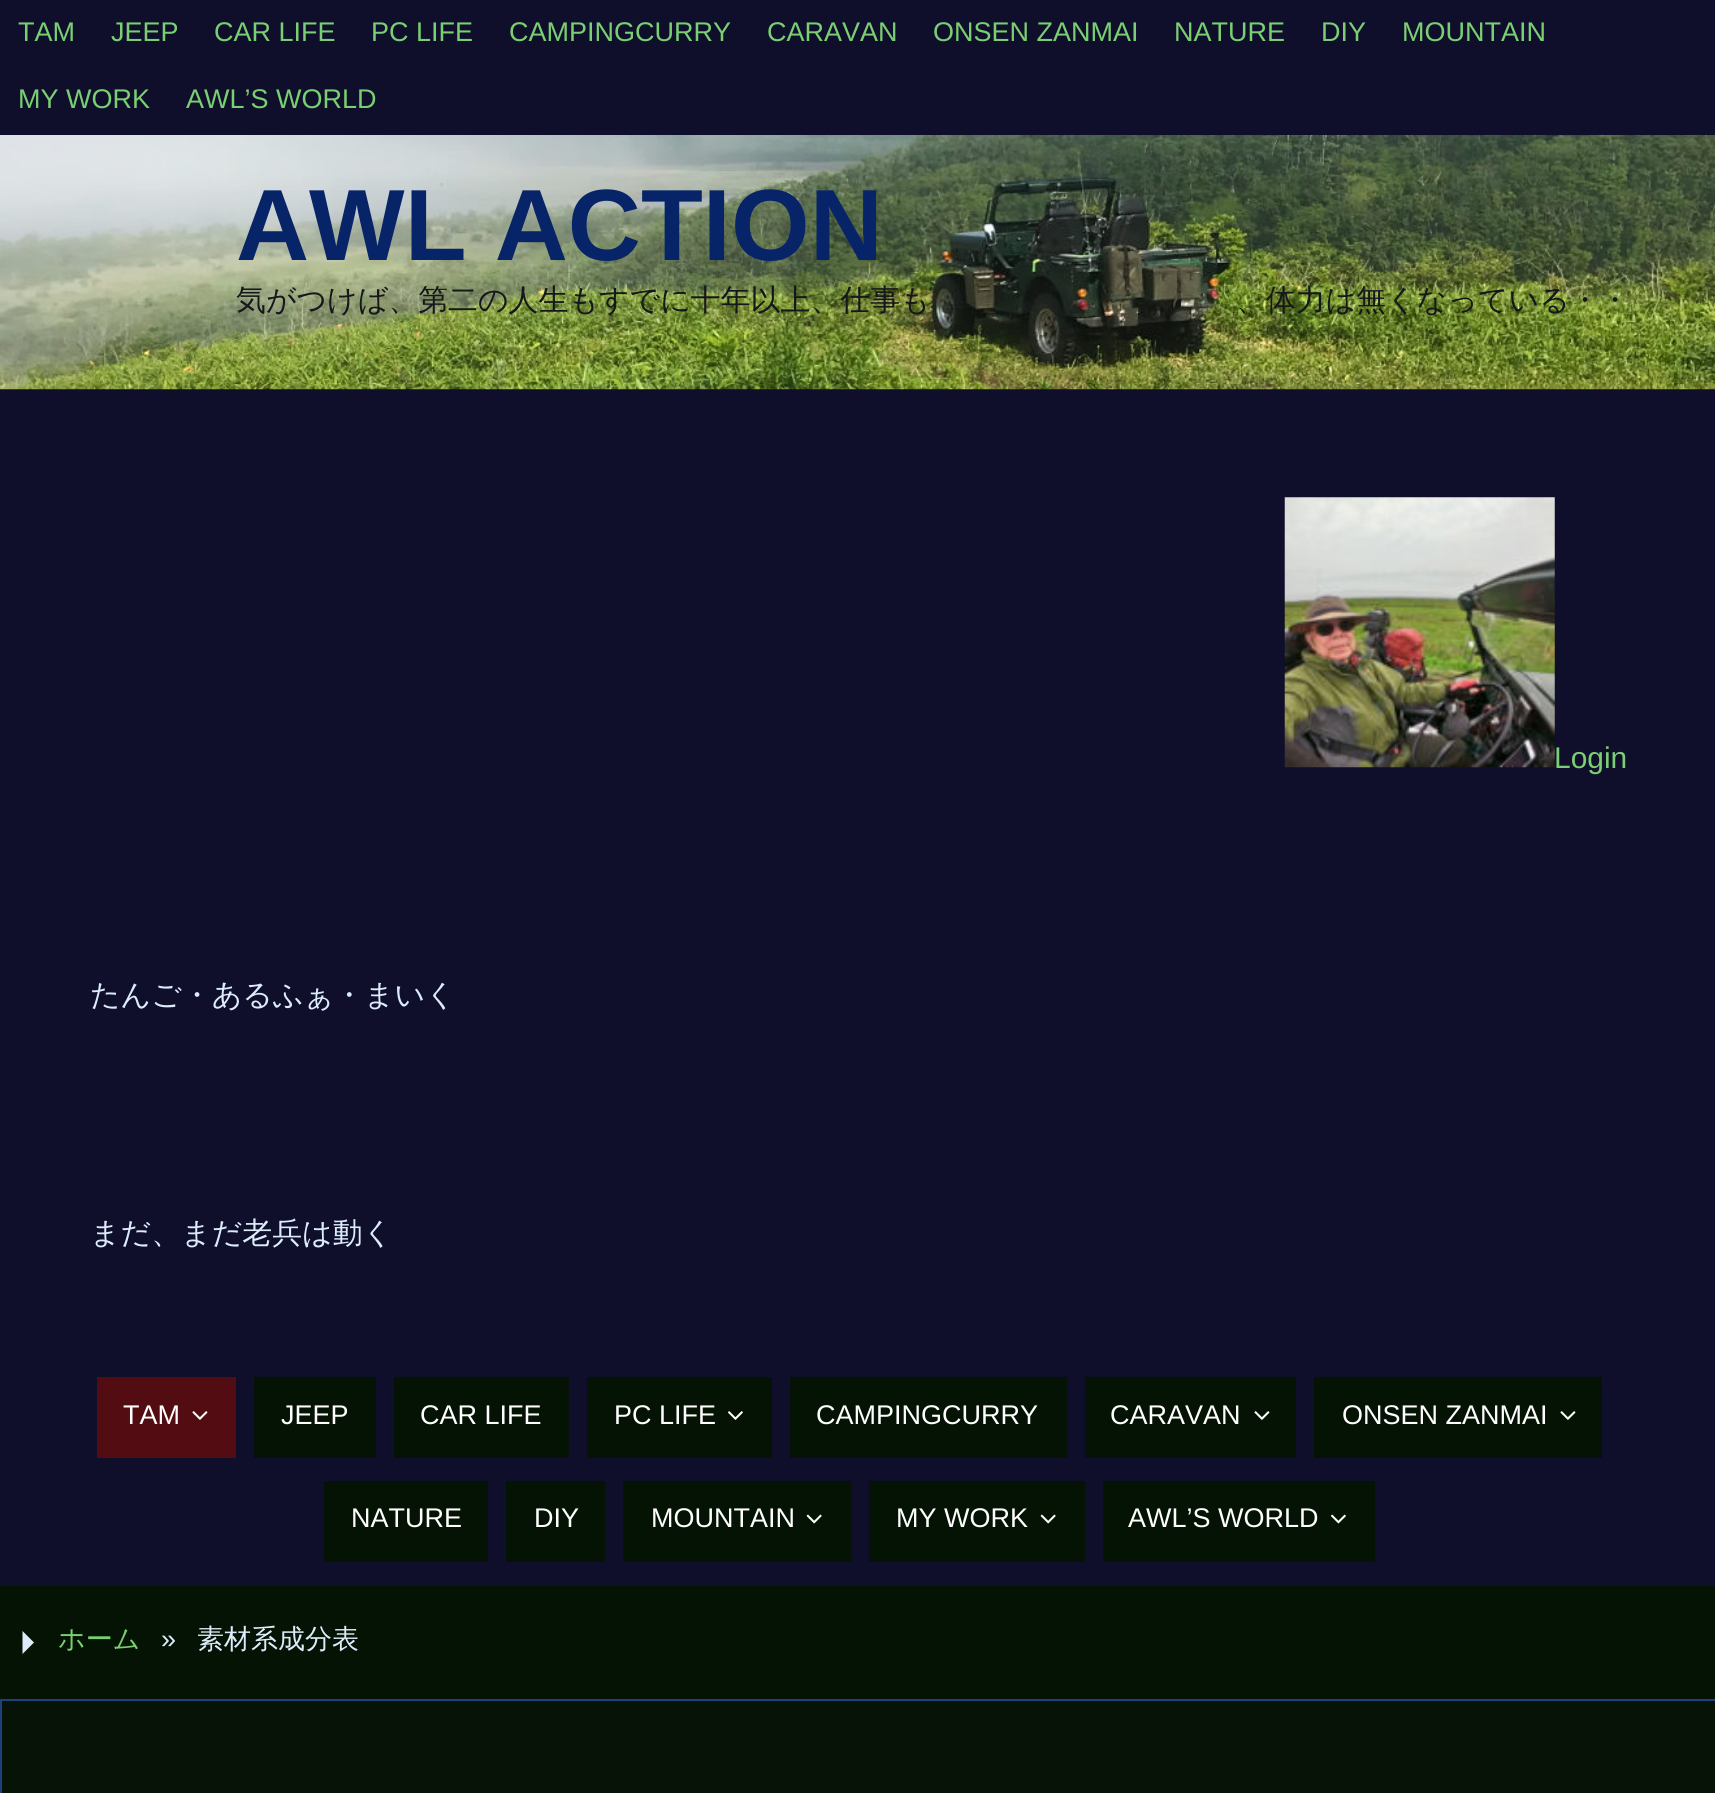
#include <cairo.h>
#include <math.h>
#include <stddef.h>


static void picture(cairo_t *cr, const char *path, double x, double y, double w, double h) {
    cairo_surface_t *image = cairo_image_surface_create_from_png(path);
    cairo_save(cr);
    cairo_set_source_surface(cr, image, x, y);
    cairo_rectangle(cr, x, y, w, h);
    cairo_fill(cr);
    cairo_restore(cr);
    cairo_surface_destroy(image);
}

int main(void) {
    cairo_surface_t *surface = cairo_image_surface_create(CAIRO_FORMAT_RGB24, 1715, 1793);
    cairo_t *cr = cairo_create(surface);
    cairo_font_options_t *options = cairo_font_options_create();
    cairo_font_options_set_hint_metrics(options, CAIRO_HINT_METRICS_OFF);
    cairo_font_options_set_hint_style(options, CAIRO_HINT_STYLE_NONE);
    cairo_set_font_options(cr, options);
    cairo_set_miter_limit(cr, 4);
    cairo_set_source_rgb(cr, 0.016, 0.078, 0.012);
    cairo_paint(cr);
    cairo_set_source_rgb(cr, 0.059, 0.059, 0.173);
    cairo_rectangle(cr, 0, 0, 1715, 1586);
    cairo_fill(cr);
    cairo_select_font_face(cr, "Liberation Sans", CAIRO_FONT_SLANT_NORMAL, CAIRO_FONT_WEIGHT_NORMAL);
    cairo_set_font_size(cr, 27);
    cairo_set_source_rgb(cr, 0.475, 0.812, 0.447);
    cairo_move_to(cr, 18, 41);
    cairo_show_text(cr, "TAM");
    cairo_move_to(cr, 111, 41);
    cairo_show_text(cr, "JEEP");
    cairo_move_to(cr, 214, 41);
    cairo_show_text(cr, "CAR LIFE");
    cairo_move_to(cr, 371, 41);
    cairo_show_text(cr, "PC LIFE");
    cairo_move_to(cr, 509, 41);
    cairo_show_text(cr, "CAMPINGCURRY");
    cairo_move_to(cr, 767, 41);
    cairo_show_text(cr, "CARAVAN");
    cairo_move_to(cr, 933, 41);
    cairo_show_text(cr, "ONSEN ZANMAI");
    cairo_move_to(cr, 1174, 41);
    cairo_show_text(cr, "NATURE");
    cairo_move_to(cr, 1321, 41);
    cairo_show_text(cr, "DIY");
    cairo_move_to(cr, 1402, 41);
    cairo_show_text(cr, "MOUNTAIN");
    cairo_move_to(cr, 18, 108);
    cairo_show_text(cr, "MY WORK");
    cairo_move_to(cr, 186, 108);
    cairo_show_text(cr, "AWL’S WORLD");
    picture(cr, "img1.png", 0, 135, 1715, 255);
    cairo_select_font_face(cr, "Liberation Sans", CAIRO_FONT_SLANT_NORMAL, CAIRO_FONT_WEIGHT_BOLD);
    cairo_set_font_size(cr, 101.25);
    cairo_set_source_rgb(cr, 0.027, 0.141, 0.404);
    cairo_move_to(cr, 236, 260);
    cairo_show_text(cr, "AWL ACTION");
    cairo_select_font_face(cr, "WenQuanYi Zen Hei Medium", CAIRO_FONT_SLANT_NORMAL, CAIRO_FONT_WEIGHT_NORMAL);
    cairo_set_font_size(cr, 29.9);
    cairo_set_source_rgb(cr, 0.086, 0.09, 0.102);
    cairo_move_to(cr, 236, 310);
    cairo_show_text(cr, "気がつけば、第二の人生もすでに十年以上、仕事も");
    cairo_move_to(cr, 1236, 310);
    cairo_show_text(cr, "、体力は無くなっている・・");
    picture(cr, "img2.png", 1284, 497, 271, 271);
    cairo_select_font_face(cr, "Liberation Sans", CAIRO_FONT_SLANT_NORMAL, CAIRO_FONT_WEIGHT_NORMAL);
    cairo_set_source_rgb(cr, 0.475, 0.812, 0.447);
    cairo_move_to(cr, 1554, 768);
    cairo_show_text(cr, "Login");
    cairo_select_font_face(cr, "WenQuanYi Zen Hei Medium", CAIRO_FONT_SLANT_NORMAL, CAIRO_FONT_WEIGHT_NORMAL);
    cairo_set_source_rgb(cr, 0.867, 0.925, 0.984);
    cairo_move_to(cr, 90, 1005);
    cairo_show_text(cr, "たんご・あるふぁ・まいく");
    cairo_move_to(cr, 90, 1243);
    cairo_show_text(cr, "まだ、まだ老兵は動く");
    cairo_set_source_rgb(cr, 0.325, 0.051, 0.071);
    cairo_rectangle(cr, 97, 1377, 139, 81);
    cairo_fill(cr);
    cairo_select_font_face(cr, "Liberation Sans", CAIRO_FONT_SLANT_NORMAL, CAIRO_FONT_WEIGHT_NORMAL);
    cairo_set_font_size(cr, 27);
    cairo_set_source_rgb(cr, 1, 1, 1);
    cairo_move_to(cr, 123, 1424);
    cairo_show_text(cr, "TAM");
    picture(cr, "img3.png", 192, 1411, 16, 9);
    cairo_set_source_rgb(cr, 0.016, 0.078, 0.012);
    cairo_rectangle(cr, 254, 1377, 122, 81);
    cairo_fill(cr);
    cairo_set_source_rgb(cr, 1, 1, 1);
    cairo_move_to(cr, 281, 1424);
    cairo_show_text(cr, "JEEP");
    cairo_set_source_rgb(cr, 0.016, 0.078, 0.012);
    cairo_rectangle(cr, 394, 1377, 175, 81);
    cairo_fill(cr);
    cairo_set_source_rgb(cr, 1, 1, 1);
    cairo_move_to(cr, 420, 1424);
    cairo_show_text(cr, "CAR LIFE");
    cairo_set_source_rgb(cr, 0.016, 0.078, 0.012);
    cairo_rectangle(cr, 587, 1377, 185, 81);
    cairo_fill(cr);
    cairo_set_source_rgb(cr, 1, 1, 1);
    cairo_move_to(cr, 614, 1424);
    cairo_show_text(cr, "PC LIFE");
    picture(cr, "img4.png", 728, 1411, 15, 9);
    cairo_set_source_rgb(cr, 0.016, 0.078, 0.012);
    cairo_rectangle(cr, 790, 1377, 277, 81);
    cairo_fill(cr);
    cairo_set_source_rgb(cr, 1, 1, 1);
    cairo_move_to(cr, 816, 1424);
    cairo_show_text(cr, "CAMPINGCURRY");
    cairo_set_source_rgb(cr, 0.016, 0.078, 0.012);
    cairo_rectangle(cr, 1085, 1377, 211, 81);
    cairo_fill(cr);
    cairo_set_source_rgb(cr, 1, 1, 1);
    cairo_move_to(cr, 1110, 1424);
    cairo_show_text(cr, "CARAVAN");
    picture(cr, "img5.png", 1254, 1411, 16, 9);
    cairo_set_source_rgb(cr, 0.016, 0.078, 0.012);
    cairo_rectangle(cr, 1314, 1377, 288, 81);
    cairo_fill(cr);
    cairo_set_source_rgb(cr, 1, 1, 1);
    cairo_move_to(cr, 1342, 1424);
    cairo_show_text(cr, "ONSEN ZANMAI");
    picture(cr, "img5.png", 1560, 1411, 16, 9);
    cairo_set_source_rgb(cr, 0.016, 0.078, 0.012);
    cairo_rectangle(cr, 324, 1481, 164, 81);
    cairo_fill(cr);
    cairo_set_source_rgb(cr, 1, 1, 1);
    cairo_move_to(cr, 351, 1527);
    cairo_show_text(cr, "NATURE");
    cairo_set_source_rgb(cr, 0.016, 0.078, 0.012);
    cairo_rectangle(cr, 506, 1481, 99, 81);
    cairo_fill(cr);
    cairo_set_source_rgb(cr, 1, 1, 1);
    cairo_move_to(cr, 534, 1527);
    cairo_show_text(cr, "DIY");
    cairo_set_source_rgb(cr, 0.016, 0.078, 0.012);
    cairo_rectangle(cr, 623, 1481, 228, 81);
    cairo_fill(cr);
    cairo_set_source_rgb(cr, 1, 1, 1);
    cairo_move_to(cr, 651, 1527);
    cairo_show_text(cr, "MOUNTAIN");
    picture(cr, "img6.png", 806, 1514, 16, 10);
    cairo_set_source_rgb(cr, 0.016, 0.078, 0.012);
    cairo_rectangle(cr, 869, 1481, 216, 81);
    cairo_fill(cr);
    cairo_set_source_rgb(cr, 1, 1, 1);
    cairo_move_to(cr, 896, 1527);
    cairo_show_text(cr, "MY WORK");
    picture(cr, "img6.png", 1040, 1514, 16, 10);
    cairo_set_source_rgb(cr, 0.016, 0.078, 0.012);
    cairo_rectangle(cr, 1103, 1481, 272, 81);
    cairo_fill(cr);
    cairo_set_source_rgb(cr, 1, 1, 1);
    cairo_move_to(cr, 1128, 1527);
    cairo_show_text(cr, "AWL’S WORLD");
    picture(cr, "img7.png", 1331, 1514, 15, 10);
    cairo_set_source_rgb(cr, 0.867, 0.925, 0.984);
    cairo_new_path(cr);
    cairo_move_to(cr, 22.5, 1654);
    cairo_line_to(cr, 22.5, 1631);
    cairo_line_to(cr, 34, 1642.5);
    cairo_close_path(cr);
    cairo_fill(cr);
    cairo_select_font_face(cr, "WenQuanYi Zen Hei Medium", CAIRO_FONT_SLANT_NORMAL, CAIRO_FONT_WEIGHT_NORMAL);
    cairo_set_source_rgb(cr, 0.475, 0.812, 0.447);
    cairo_move_to(cr, 58, 1648);
    cairo_show_text(cr, "ホーム");
    cairo_select_font_face(cr, "Liberation Sans", CAIRO_FONT_SLANT_NORMAL, CAIRO_FONT_WEIGHT_NORMAL);
    cairo_set_source_rgb(cr, 0.867, 0.925, 0.984);
    cairo_move_to(cr, 161, 1648);
    cairo_show_text(cr, "»");
    cairo_select_font_face(cr, "WenQuanYi Zen Hei Medium", CAIRO_FONT_SLANT_NORMAL, CAIRO_FONT_WEIGHT_NORMAL);
    cairo_move_to(cr, 197, 1648);
    cairo_show_text(cr, "素材系成分表");
    cairo_set_source_rgb(cr, 0.024, 0.075, 0.024);
    cairo_rectangle(cr, 1, 1700, 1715, 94);
    cairo_fill_preserve(cr);
    cairo_set_source_rgb(cr, 0.102, 0.263, 0.482);
    cairo_stroke(cr);
    cairo_surface_write_to_png(surface, "page.png");
    cairo_font_options_destroy(options);
    cairo_destroy(cr);
    cairo_surface_destroy(surface);
    return 0;
}
